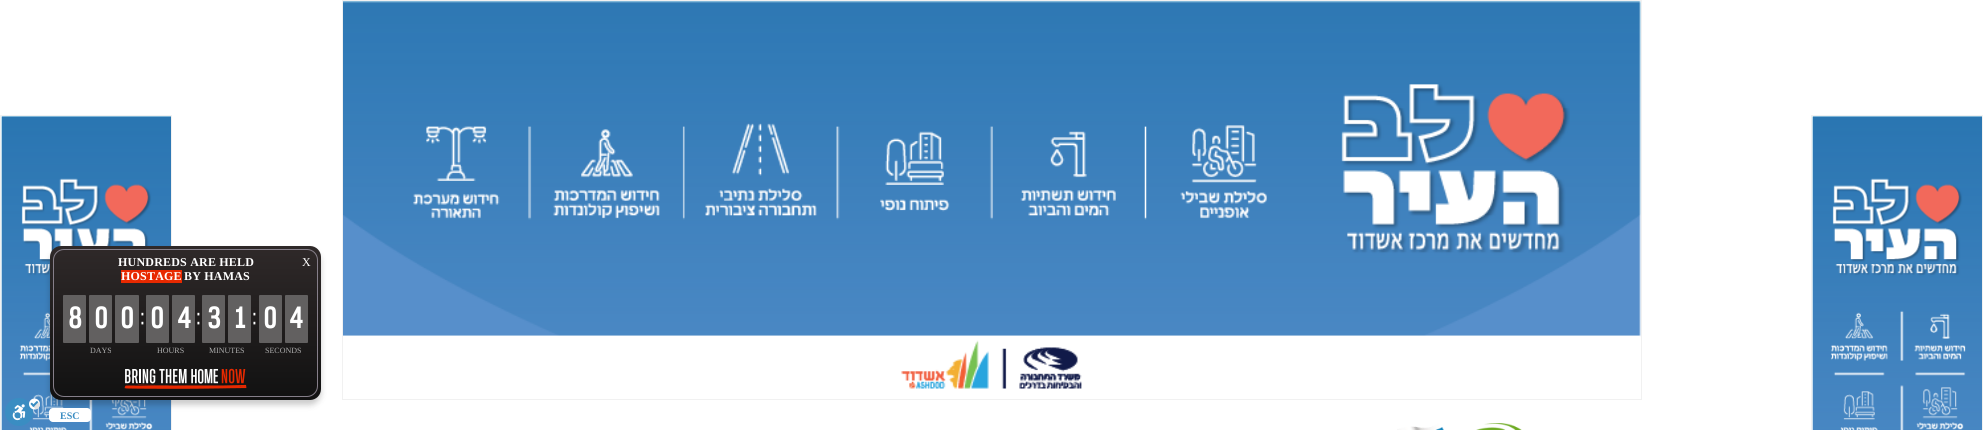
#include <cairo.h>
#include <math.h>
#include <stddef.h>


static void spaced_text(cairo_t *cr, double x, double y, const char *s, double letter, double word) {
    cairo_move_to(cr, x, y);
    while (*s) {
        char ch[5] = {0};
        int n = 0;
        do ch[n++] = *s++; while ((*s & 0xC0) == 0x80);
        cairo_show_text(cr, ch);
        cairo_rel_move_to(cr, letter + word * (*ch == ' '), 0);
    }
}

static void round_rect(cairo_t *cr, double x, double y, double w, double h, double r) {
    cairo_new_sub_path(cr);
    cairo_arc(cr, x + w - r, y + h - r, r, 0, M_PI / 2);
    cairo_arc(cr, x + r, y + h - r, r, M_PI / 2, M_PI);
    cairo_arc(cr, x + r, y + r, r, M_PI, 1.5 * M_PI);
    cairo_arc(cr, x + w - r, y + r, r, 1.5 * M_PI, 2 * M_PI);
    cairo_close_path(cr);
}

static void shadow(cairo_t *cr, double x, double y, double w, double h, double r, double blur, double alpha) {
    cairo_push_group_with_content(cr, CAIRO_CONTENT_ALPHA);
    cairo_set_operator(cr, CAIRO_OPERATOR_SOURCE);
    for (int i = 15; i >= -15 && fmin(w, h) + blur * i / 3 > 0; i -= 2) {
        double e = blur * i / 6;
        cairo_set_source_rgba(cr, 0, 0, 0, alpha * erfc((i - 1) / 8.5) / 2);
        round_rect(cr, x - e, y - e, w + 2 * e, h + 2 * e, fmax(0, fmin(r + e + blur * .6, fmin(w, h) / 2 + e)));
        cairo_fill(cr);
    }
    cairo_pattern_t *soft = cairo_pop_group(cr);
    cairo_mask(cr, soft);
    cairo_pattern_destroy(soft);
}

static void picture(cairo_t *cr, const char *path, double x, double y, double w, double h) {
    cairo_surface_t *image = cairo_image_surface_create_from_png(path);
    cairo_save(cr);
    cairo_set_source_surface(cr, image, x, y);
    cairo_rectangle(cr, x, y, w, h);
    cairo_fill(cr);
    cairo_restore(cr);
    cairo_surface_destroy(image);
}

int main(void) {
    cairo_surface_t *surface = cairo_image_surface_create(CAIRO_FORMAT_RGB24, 1983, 430);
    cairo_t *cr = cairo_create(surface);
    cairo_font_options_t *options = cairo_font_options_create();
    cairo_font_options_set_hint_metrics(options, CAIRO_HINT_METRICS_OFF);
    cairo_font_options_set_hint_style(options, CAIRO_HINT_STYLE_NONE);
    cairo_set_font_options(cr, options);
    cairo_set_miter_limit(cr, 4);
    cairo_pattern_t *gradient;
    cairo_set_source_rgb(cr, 1, 1, 1);
    cairo_paint(cr);
    cairo_rectangle(cr, 0.5, 115.5, 171, 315);
    cairo_set_source_rgb(cr, 0.945, 0.945, 0.945);
    cairo_set_line_width(cr, 1);
    cairo_stroke(cr);
    picture(cr, "img1.png", 1, 116, 170, 314);
    cairo_rectangle(cr, 342.5, 0.5, 1299, 399);
    cairo_stroke(cr);
    picture(cr, "img2.png", 343, 1, 1298, 388);
    picture(cr, "img3.png", 1397, 423, 125, 7);
    cairo_rectangle(cr, 1811.5, 115.5, 171, 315);
    cairo_stroke(cr);
    picture(cr, "img1.png", 1812, 116, 170, 314);
    cairo_set_source_rgb(cr, 0, 0, 0);
    shadow(cr, 50, 251, 271, 154, 11, 3, 0.2);
    gradient = cairo_pattern_create_linear(186, 246, 186, 400);
    cairo_pattern_add_color_stop_rgba(gradient, 0, 0.184, 0.161, 0.161, 1);
    cairo_pattern_add_color_stop_rgba(gradient, 1, 0.067, 0.067, 0.067, 1);
    cairo_set_source(cr, gradient);
    cairo_pattern_destroy(gradient);
    round_rect(cr, 50, 246, 271, 154, 11);
    cairo_fill(cr);
    round_rect(cr, 53.5, 249.5, 264, 147, 10.5);
    cairo_set_source_rgb(cr, 0.525, 0.498, 0.541);
    cairo_stroke(cr);
    cairo_select_font_face(cr, "Liberation Serif", CAIRO_FONT_SLANT_NORMAL, CAIRO_FONT_WEIGHT_BOLD);
    cairo_set_font_size(cr, 12);
    cairo_set_source_rgb(cr, 1, 1, 1);
    spaced_text(cr, 118, 266, "HUNDREDS ARE HELD", 0.2, 0);
    cairo_set_source_rgb(cr, 0.91, 0.161, 0);
    cairo_rectangle(cr, 121, 270, 61, 13);
    cairo_fill(cr);
    cairo_set_source_rgb(cr, 1, 1, 1);
    spaced_text(cr, 121, 280, "HOSTAGE", 0.2, 0);
    spaced_text(cr, 184, 280, "BY HAMAS", 0.2, 0);
    cairo_select_font_face(cr, "Liberation Serif", CAIRO_FONT_SLANT_NORMAL, CAIRO_FONT_WEIGHT_NORMAL);
    cairo_move_to(cr, 302, 266);
    cairo_show_text(cr, "X");
    cairo_set_source_rgb(cr, 0.384, 0.376, 0.376);
    round_rect(cr, 63, 295, 23, 48, 1);
    cairo_fill(cr);
    cairo_select_font_face(cr, "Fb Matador", CAIRO_FONT_SLANT_NORMAL, CAIRO_FONT_WEIGHT_BOLD);
    cairo_set_font_size(cr, 32);
    cairo_set_source_rgb(cr, 1, 1, 1);
    cairo_move_to(cr, 68, 328);
    cairo_show_text(cr, "8");
    cairo_set_source_rgb(cr, 0.384, 0.376, 0.376);
    round_rect(cr, 89, 295, 23, 48, 1);
    cairo_fill(cr);
    cairo_set_source_rgb(cr, 1, 1, 1);
    cairo_move_to(cr, 94, 328);
    cairo_show_text(cr, "0");
    cairo_set_source_rgb(cr, 0.384, 0.376, 0.376);
    round_rect(cr, 115, 295, 24, 48, 1);
    cairo_fill(cr);
    cairo_set_source_rgb(cr, 1, 1, 1);
    cairo_move_to(cr, 120, 328);
    cairo_show_text(cr, "0");
    cairo_select_font_face(cr, "Liberation Serif", CAIRO_FONT_SLANT_NORMAL, CAIRO_FONT_WEIGHT_NORMAL);
    cairo_set_font_size(cr, 8);
    cairo_set_source_rgb(cr, 0.686, 0.686, 0.686);
    cairo_move_to(cr, 90, 353);
    cairo_show_text(cr, "DAYS");
    cairo_select_font_face(cr, "Fb Matador", CAIRO_FONT_SLANT_NORMAL, CAIRO_FONT_WEIGHT_NORMAL);
    cairo_set_font_size(cr, 24);
    cairo_set_source_rgb(cr, 1, 1, 1);
    cairo_move_to(cr, 140, 325);
    cairo_show_text(cr, ":");
    cairo_set_source_rgb(cr, 0.384, 0.376, 0.376);
    round_rect(cr, 146, 295, 23, 48, 1);
    cairo_fill(cr);
    cairo_select_font_face(cr, "Fb Matador", CAIRO_FONT_SLANT_NORMAL, CAIRO_FONT_WEIGHT_BOLD);
    cairo_set_font_size(cr, 32);
    cairo_set_source_rgb(cr, 1, 1, 1);
    cairo_move_to(cr, 150, 328);
    cairo_show_text(cr, "0");
    cairo_set_source_rgb(cr, 0.384, 0.376, 0.376);
    round_rect(cr, 172, 295, 23, 48, 1);
    cairo_fill(cr);
    cairo_set_source_rgb(cr, 1, 1, 1);
    cairo_move_to(cr, 177, 328);
    cairo_show_text(cr, "4");
    cairo_select_font_face(cr, "Liberation Serif", CAIRO_FONT_SLANT_NORMAL, CAIRO_FONT_WEIGHT_NORMAL);
    cairo_set_font_size(cr, 8);
    cairo_set_source_rgb(cr, 0.686, 0.686, 0.686);
    cairo_move_to(cr, 157, 353);
    cairo_show_text(cr, "HOURS");
    cairo_select_font_face(cr, "Fb Matador", CAIRO_FONT_SLANT_NORMAL, CAIRO_FONT_WEIGHT_NORMAL);
    cairo_set_font_size(cr, 24);
    cairo_set_source_rgb(cr, 1, 1, 1);
    cairo_move_to(cr, 196, 325);
    cairo_show_text(cr, ":");
    cairo_set_source_rgb(cr, 0.384, 0.376, 0.376);
    round_rect(cr, 202, 295, 23, 48, 1);
    cairo_fill(cr);
    cairo_select_font_face(cr, "Fb Matador", CAIRO_FONT_SLANT_NORMAL, CAIRO_FONT_WEIGHT_BOLD);
    cairo_set_font_size(cr, 32);
    cairo_set_source_rgb(cr, 1, 1, 1);
    cairo_move_to(cr, 207, 328);
    cairo_show_text(cr, "3");
    cairo_set_source_rgb(cr, 0.384, 0.376, 0.376);
    round_rect(cr, 228, 295, 23, 48, 1);
    cairo_fill(cr);
    cairo_set_source_rgb(cr, 1, 1, 1);
    cairo_move_to(cr, 233, 328);
    cairo_show_text(cr, "1");
    cairo_select_font_face(cr, "Liberation Serif", CAIRO_FONT_SLANT_NORMAL, CAIRO_FONT_WEIGHT_NORMAL);
    cairo_set_font_size(cr, 8);
    cairo_set_source_rgb(cr, 0.686, 0.686, 0.686);
    cairo_move_to(cr, 209, 353);
    cairo_show_text(cr, "MINUTES");
    cairo_select_font_face(cr, "Fb Matador", CAIRO_FONT_SLANT_NORMAL, CAIRO_FONT_WEIGHT_NORMAL);
    cairo_set_font_size(cr, 24);
    cairo_set_source_rgb(cr, 1, 1, 1);
    cairo_move_to(cr, 252, 325);
    cairo_show_text(cr, ":");
    cairo_set_source_rgb(cr, 0.384, 0.376, 0.376);
    round_rect(cr, 259, 295, 23, 48, 1);
    cairo_fill(cr);
    cairo_select_font_face(cr, "Fb Matador", CAIRO_FONT_SLANT_NORMAL, CAIRO_FONT_WEIGHT_BOLD);
    cairo_set_font_size(cr, 32);
    cairo_set_source_rgb(cr, 1, 1, 1);
    cairo_move_to(cr, 263, 328);
    cairo_show_text(cr, "0");
    cairo_set_source_rgb(cr, 0.384, 0.376, 0.376);
    round_rect(cr, 285, 295, 23, 48, 1);
    cairo_fill(cr);
    cairo_set_source_rgb(cr, 1, 1, 1);
    cairo_move_to(cr, 289, 328);
    cairo_show_text(cr, "4");
    cairo_select_font_face(cr, "Liberation Serif", CAIRO_FONT_SLANT_NORMAL, CAIRO_FONT_WEIGHT_NORMAL);
    cairo_set_font_size(cr, 8);
    cairo_set_source_rgb(cr, 0.686, 0.686, 0.686);
    cairo_move_to(cr, 265, 353);
    cairo_show_text(cr, "SECONDS");
    picture(cr, "img4.png", 124, 368, 123, 21);
    picture(cr, "img5.png", 5, 398, 35, 28);
    cairo_set_source_rgb(cr, 1, 1, 1);
    round_rect(cr, 49, 408, 42, 14, 4);
    cairo_fill(cr);
    cairo_select_font_face(cr, "Liberation Serif", CAIRO_FONT_SLANT_NORMAL, CAIRO_FONT_WEIGHT_BOLD);
    cairo_set_font_size(cr, 10);
    cairo_set_source_rgb(cr, 0.227, 0.553, 0.761);
    cairo_move_to(cr, 60, 419);
    cairo_show_text(cr, "ESC");
    cairo_surface_write_to_png(surface, "page.png");
    cairo_font_options_destroy(options);
    cairo_destroy(cr);
    cairo_surface_destroy(surface);
    return 0;
}
